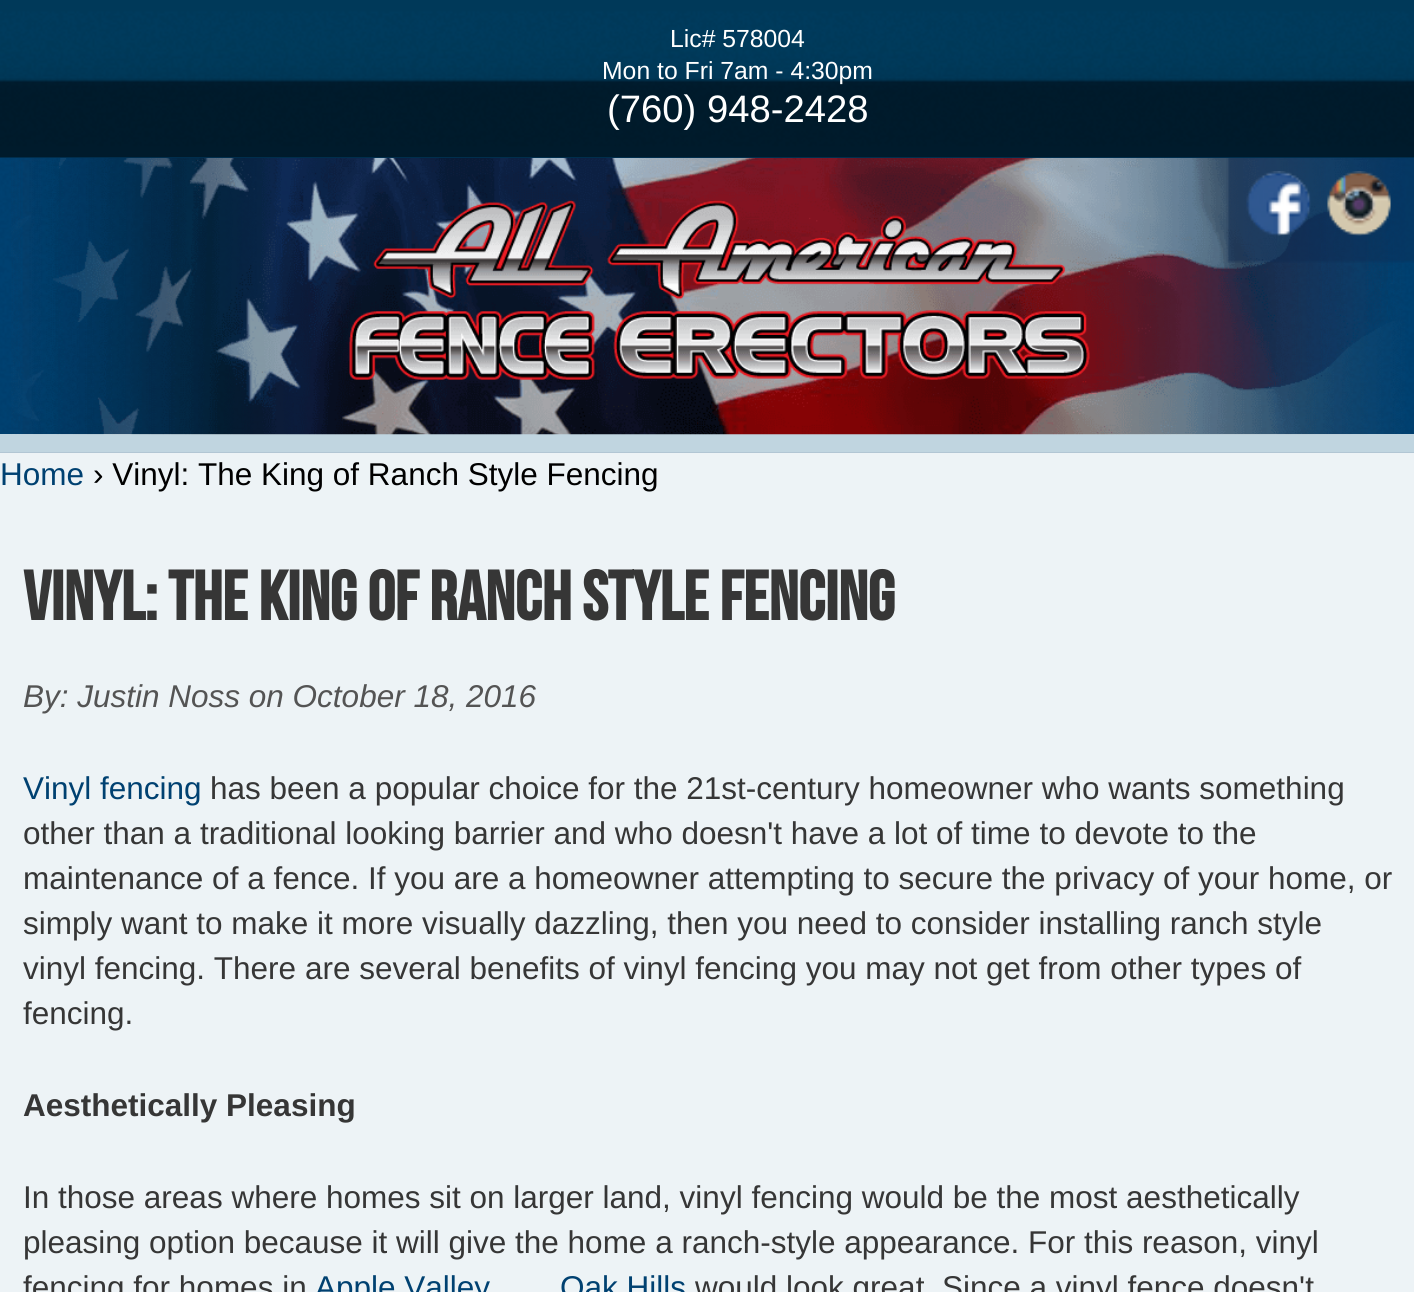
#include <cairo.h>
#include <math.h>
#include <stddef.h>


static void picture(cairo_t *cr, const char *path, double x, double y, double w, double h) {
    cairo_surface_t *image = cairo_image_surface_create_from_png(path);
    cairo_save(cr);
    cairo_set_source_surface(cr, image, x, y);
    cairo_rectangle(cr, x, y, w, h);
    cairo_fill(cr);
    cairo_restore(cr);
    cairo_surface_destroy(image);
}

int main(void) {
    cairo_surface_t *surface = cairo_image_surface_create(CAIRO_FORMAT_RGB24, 1414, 1292);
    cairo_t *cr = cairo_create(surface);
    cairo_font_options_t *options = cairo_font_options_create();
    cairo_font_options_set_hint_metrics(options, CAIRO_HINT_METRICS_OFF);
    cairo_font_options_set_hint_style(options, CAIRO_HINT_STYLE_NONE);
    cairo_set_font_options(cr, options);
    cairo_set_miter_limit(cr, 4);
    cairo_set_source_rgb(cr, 0.929, 0.953, 0.961);
    cairo_paint(cr);
    cairo_set_source_rgb(cr, 0, 0.251, 0.435);
    cairo_rectangle(cr, 0, 157, 1414, 1);
    cairo_fill(cr);
    picture(cr, "img1.png", 0, 0, 1414, 158);
    cairo_select_font_face(cr, "Liberation Sans", CAIRO_FONT_SLANT_NORMAL, CAIRO_FONT_WEIGHT_NORMAL);
    cairo_set_font_size(cr, 24.75);
    cairo_set_source_rgb(cr, 1, 1, 1);
    cairo_move_to(cr, 670, 47);
    cairo_show_text(cr, "Lic# 578004");
    cairo_move_to(cr, 602, 79);
    cairo_show_text(cr, "Mon to Fri 7am - 4:30pm");
    cairo_set_font_size(cr, 38.25);
    cairo_move_to(cr, 607, 122);
    cairo_show_text(cr, "(760) 948-2428");
    picture(cr, "img2.png", 0, 158, 1414, 295);
    cairo_set_source_rgb(cr, 0.753, 0.835, 0.878);
    cairo_rectangle(cr, 0, 434, 1414, 18);
    cairo_fill(cr);
    picture(cr, "img3.png", 11, 158, 1394, 277);
    picture(cr, "img4.png", 1226, 158, 188, 105);
    picture(cr, "img5.png", 1246, 171, 65, 65);
    picture(cr, "img6.png", 1327, 171, 64, 65);
    cairo_set_font_size(cr, 31.5);
    cairo_set_source_rgb(cr, 0, 0.255, 0.443);
    cairo_move_to(cr, 0, 485);
    cairo_show_text(cr, "Home");
    cairo_set_source_rgb(cr, 0, 0, 0);
    cairo_move_to(cr, 93, 485);
    cairo_show_text(cr, "› Vinyl: The King of Ranch Style Fencing");
    cairo_select_font_face(cr, "Bebas Neue", CAIRO_FONT_SLANT_NORMAL, CAIRO_FONT_WEIGHT_BOLD);
    cairo_set_font_size(cr, 69.25);
    cairo_set_source_rgb(cr, 0.212, 0.212, 0.212);
    cairo_move_to(cr, 23, 620);
    cairo_show_text(cr, "Vinyl: The King of Ranch Style Fencing");
    cairo_select_font_face(cr, "Liberation Sans", CAIRO_FONT_SLANT_ITALIC, CAIRO_FONT_WEIGHT_NORMAL);
    cairo_set_font_size(cr, 31.5);
    cairo_set_source_rgb(cr, 0.329, 0.329, 0.329);
    cairo_move_to(cr, 23, 707);
    cairo_show_text(cr, "By: Justin Noss on October 18, 2016");
    cairo_select_font_face(cr, "Liberation Sans", CAIRO_FONT_SLANT_NORMAL, CAIRO_FONT_WEIGHT_NORMAL);
    cairo_set_source_rgb(cr, 0, 0.255, 0.443);
    cairo_move_to(cr, 23, 799);
    cairo_show_text(cr, "Vinyl fencing");
    cairo_set_source_rgb(cr, 0.212, 0.212, 0.212);
    cairo_move_to(cr, 210, 799);
    cairo_show_text(cr, "has been a popular choice for the 21st-century homeowner who wants something");
    cairo_move_to(cr, 23, 844);
    cairo_show_text(cr, "other than a traditional looking barrier and who doesn't have a lot of time to devote to the");
    cairo_move_to(cr, 23, 889);
    cairo_show_text(cr, "maintenance of a fence. If you are a homeowner attempting to secure the privacy of your home, or");
    cairo_move_to(cr, 23, 934);
    cairo_show_text(cr, "simply want to make it more visually dazzling, then you need to consider installing ranch style");
    cairo_move_to(cr, 23, 979);
    cairo_show_text(cr, "vinyl fencing. There are several benefits of vinyl fencing you may not get from other types of");
    cairo_move_to(cr, 23, 1024);
    cairo_show_text(cr, "fencing.");
    cairo_select_font_face(cr, "Liberation Sans", CAIRO_FONT_SLANT_NORMAL, CAIRO_FONT_WEIGHT_BOLD);
    cairo_move_to(cr, 23, 1116);
    cairo_show_text(cr, "Aesthetically Pleasing");
    cairo_select_font_face(cr, "Liberation Sans", CAIRO_FONT_SLANT_NORMAL, CAIRO_FONT_WEIGHT_NORMAL);
    cairo_move_to(cr, 23, 1208);
    cairo_show_text(cr, "In those areas where homes sit on larger land, vinyl fencing would be the most aesthetically");
    cairo_move_to(cr, 23, 1253);
    cairo_show_text(cr, "pleasing option because it will give the home a ranch-style appearance. For this reason, vinyl");
    cairo_move_to(cr, 23, 1298);
    cairo_show_text(cr, "fencing for homes in");
    cairo_set_source_rgb(cr, 0, 0.255, 0.443);
    cairo_move_to(cr, 315, 1298);
    cairo_show_text(cr, "Apple Valley");
    cairo_move_to(cr, 560, 1298);
    cairo_show_text(cr, "Oak Hills");
    cairo_set_source_rgb(cr, 0.212, 0.212, 0.212);
    cairo_move_to(cr, 695, 1298);
    cairo_show_text(cr, "would look great. Since a vinyl fence doesn't");
    cairo_surface_write_to_png(surface, "page.png");
    cairo_font_options_destroy(options);
    cairo_destroy(cr);
    cairo_surface_destroy(surface);
    return 0;
}
